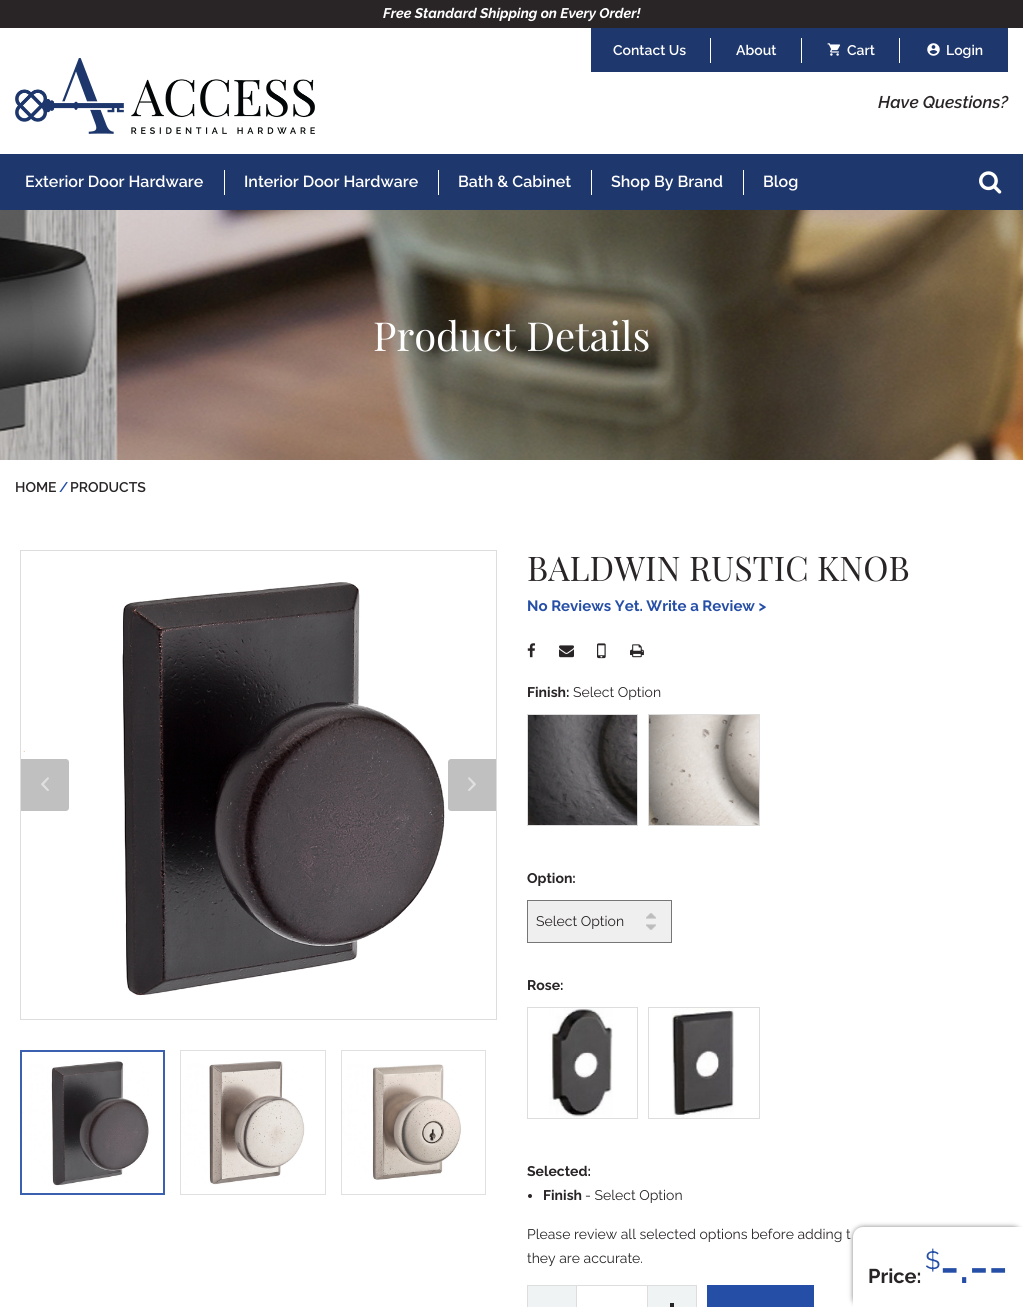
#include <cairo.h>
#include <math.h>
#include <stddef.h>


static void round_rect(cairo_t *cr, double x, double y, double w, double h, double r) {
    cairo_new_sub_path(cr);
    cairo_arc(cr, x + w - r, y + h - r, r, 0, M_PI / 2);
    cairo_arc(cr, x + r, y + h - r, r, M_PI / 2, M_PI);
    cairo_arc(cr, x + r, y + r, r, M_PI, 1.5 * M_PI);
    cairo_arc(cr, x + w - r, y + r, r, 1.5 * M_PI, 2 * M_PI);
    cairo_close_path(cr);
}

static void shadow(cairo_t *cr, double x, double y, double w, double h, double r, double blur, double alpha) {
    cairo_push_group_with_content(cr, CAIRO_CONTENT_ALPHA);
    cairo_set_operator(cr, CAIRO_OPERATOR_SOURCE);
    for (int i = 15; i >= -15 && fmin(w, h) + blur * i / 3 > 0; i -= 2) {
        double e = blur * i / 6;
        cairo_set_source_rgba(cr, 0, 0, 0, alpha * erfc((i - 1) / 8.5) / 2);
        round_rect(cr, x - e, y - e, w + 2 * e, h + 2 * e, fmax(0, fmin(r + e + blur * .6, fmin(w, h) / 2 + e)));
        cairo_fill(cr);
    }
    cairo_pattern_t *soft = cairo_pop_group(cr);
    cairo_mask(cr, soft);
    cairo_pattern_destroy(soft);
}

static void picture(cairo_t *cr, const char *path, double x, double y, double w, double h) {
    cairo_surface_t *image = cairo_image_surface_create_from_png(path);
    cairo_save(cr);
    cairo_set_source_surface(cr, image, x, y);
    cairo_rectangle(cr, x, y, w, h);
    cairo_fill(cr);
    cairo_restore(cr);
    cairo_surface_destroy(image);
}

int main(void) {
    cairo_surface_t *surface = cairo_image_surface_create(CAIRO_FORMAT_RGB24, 1023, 1307);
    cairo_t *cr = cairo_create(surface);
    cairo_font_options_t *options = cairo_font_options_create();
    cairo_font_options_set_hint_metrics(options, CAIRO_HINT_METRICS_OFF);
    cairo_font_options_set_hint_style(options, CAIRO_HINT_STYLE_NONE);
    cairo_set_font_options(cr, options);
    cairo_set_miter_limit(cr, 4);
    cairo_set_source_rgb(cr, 1, 1, 1);
    cairo_paint(cr);
    cairo_set_source_rgb(cr, 0.161, 0.145, 0.149);
    cairo_rectangle(cr, 0, 0, 1023, 28);
    cairo_fill(cr);
    cairo_select_font_face(cr, "Raleway", CAIRO_FONT_SLANT_ITALIC, CAIRO_FONT_WEIGHT_BOLD);
    cairo_set_font_size(cr, 14);
    cairo_set_source_rgb(cr, 1, 1, 1);
    cairo_move_to(cr, 383, 18);
    cairo_show_text(cr, "Free Standard Shipping on Every Order!");
    cairo_set_source_rgb(cr, 0.118, 0.216, 0.424);
    cairo_rectangle(cr, 591, 28, 417, 44);
    cairo_fill(cr);
    cairo_select_font_face(cr, "Raleway SemiBold", CAIRO_FONT_SLANT_NORMAL, CAIRO_FONT_WEIGHT_NORMAL);
    cairo_set_source_rgb(cr, 1, 1, 1);
    cairo_move_to(cr, 613, 55);
    cairo_show_text(cr, "Contact Us");
    cairo_rectangle(cr, 710, 38, 1, 25);
    cairo_fill(cr);
    cairo_move_to(cr, 736, 55);
    cairo_show_text(cr, "About");
    cairo_rectangle(cr, 801, 38, 1, 25);
    cairo_fill(cr);
    picture(cr, "img1.png", 827, 43, 14, 13);
    cairo_move_to(cr, 847, 55);
    cairo_show_text(cr, "Cart");
    cairo_rectangle(cr, 899, 38, 1, 25);
    cairo_fill(cr);
    picture(cr, "img2.png", 927, 43, 13, 13);
    cairo_move_to(cr, 946, 55);
    cairo_show_text(cr, "Login");
    picture(cr, "img3.png", 15, 58, 300, 76);
    cairo_select_font_face(cr, "Raleway SemiBold", CAIRO_FONT_SLANT_ITALIC, CAIRO_FONT_WEIGHT_NORMAL);
    cairo_set_font_size(cr, 17);
    cairo_set_source_rgb(cr, 0.161, 0.145, 0.149);
    cairo_move_to(cr, 878, 108);
    cairo_show_text(cr, "Have Questions?");
    cairo_set_source_rgb(cr, 0.118, 0.216, 0.424);
    cairo_rectangle(cr, 0, 154, 1023, 56);
    cairo_fill(cr);
    cairo_select_font_face(cr, "Raleway SemiBold", CAIRO_FONT_SLANT_NORMAL, CAIRO_FONT_WEIGHT_NORMAL);
    cairo_set_font_size(cr, 16);
    cairo_set_source_rgb(cr, 1, 1, 1);
    cairo_move_to(cr, 25, 187);
    cairo_show_text(cr, "Exterior Door Hardware");
    cairo_rectangle(cr, 224, 170, 1, 25);
    cairo_fill(cr);
    cairo_move_to(cr, 244, 187);
    cairo_show_text(cr, "Interior Door Hardware");
    cairo_rectangle(cr, 438, 170, 1, 25);
    cairo_fill(cr);
    cairo_move_to(cr, 458, 187);
    cairo_show_text(cr, "Bath & Cabinet");
    cairo_rectangle(cr, 591, 170, 1, 25);
    cairo_fill(cr);
    cairo_move_to(cr, 611, 187);
    cairo_show_text(cr, "Shop By Brand");
    cairo_rectangle(cr, 743, 170, 1, 25);
    cairo_fill(cr);
    cairo_move_to(cr, 763, 187);
    cairo_show_text(cr, "Blog");
    picture(cr, "img4.png", 979, 171, 23, 23);
    picture(cr, "img5.png", 0, 210, 1023, 250);
    cairo_select_font_face(cr, "Playfair Display", CAIRO_FONT_SLANT_NORMAL, CAIRO_FONT_WEIGHT_NORMAL);
    cairo_set_font_size(cr, 40);
    cairo_move_to(cr, 373, 351);
    cairo_show_text(cr, "Product Details");
    cairo_select_font_face(cr, "Raleway SemiBold", CAIRO_FONT_SLANT_NORMAL, CAIRO_FONT_WEIGHT_NORMAL);
    cairo_set_font_size(cr, 14);
    cairo_set_source_rgb(cr, 0.161, 0.145, 0.149);
    cairo_move_to(cr, 15, 492);
    cairo_show_text(cr, "HOME");
    cairo_set_source_rgb(cr, 0.145, 0.306, 0.651);
    cairo_move_to(cr, 59, 492);
    cairo_show_text(cr, "/");
    cairo_set_source_rgb(cr, 0.161, 0.145, 0.149);
    cairo_move_to(cr, 70, 492);
    cairo_show_text(cr, "PRODUCTS");
    cairo_rectangle(cr, 20.5, 550.5, 476, 469);
    cairo_set_source_rgb(cr, 0.867, 0.867, 0.867);
    cairo_set_line_width(cr, 1);
    cairo_stroke(cr);
    picture(cr, "img6.png", 23, 582, 422, 414);
    cairo_set_source_rgb(cr, 0.753, 0.753, 0.753);
    cairo_new_path(cr);
    cairo_move_to(cr, 21, 759);
    cairo_line_to(cr, 66, 759);
    cairo_curve_to(cr, 67.5, 759, 69, 760.5, 69, 762);
    cairo_line_to(cr, 69, 808);
    cairo_curve_to(cr, 69, 809.5, 67.5, 811, 66, 811);
    cairo_line_to(cr, 21, 811);
    cairo_close_path(cr);
    cairo_fill(cr);
    picture(cr, "img7.png", 41, 777, 8, 14);
    cairo_new_path(cr);
    cairo_move_to(cr, 451, 759);
    cairo_line_to(cr, 496, 759);
    cairo_line_to(cr, 496, 811);
    cairo_line_to(cr, 451, 811);
    cairo_curve_to(cr, 449.5, 811, 448, 809.5, 448, 808);
    cairo_line_to(cr, 448, 762);
    cairo_curve_to(cr, 448, 760.5, 449.5, 759, 451, 759);
    cairo_close_path(cr);
    cairo_fill(cr);
    picture(cr, "img8.png", 468, 777, 8, 14);
    picture(cr, "img9.png", 22, 1061, 127, 125);
    cairo_rectangle(cr, 21, 1051, 143, 143);
    cairo_set_source_rgb(cr, 0.231, 0.376, 0.686);
    cairo_set_line_width(cr, 2);
    cairo_stroke(cr);
    picture(cr, "img10.png", 182, 1061, 123, 124);
    cairo_rectangle(cr, 180.5, 1050.5, 145, 144);
    cairo_set_source_rgb(cr, 0.878, 0.878, 0.878);
    cairo_set_line_width(cr, 1);
    cairo_stroke(cr);
    picture(cr, "img11.png", 342, 1064, 119, 116);
    cairo_rectangle(cr, 341.5, 1050.5, 144, 144);
    cairo_stroke(cr);
    cairo_select_font_face(cr, "Playfair Display", CAIRO_FONT_SLANT_NORMAL, CAIRO_FONT_WEIGHT_NORMAL);
    cairo_set_font_size(cr, 34);
    cairo_set_source_rgb(cr, 0.161, 0.145, 0.149);
    cairo_move_to(cr, 527, 581);
    cairo_show_text(cr, "BALDWIN RUSTIC KNOB");
    cairo_select_font_face(cr, "Raleway", CAIRO_FONT_SLANT_NORMAL, CAIRO_FONT_WEIGHT_BOLD);
    cairo_set_font_size(cr, 15);
    cairo_set_source_rgb(cr, 0.145, 0.306, 0.651);
    cairo_move_to(cr, 527, 611);
    cairo_show_text(cr, "No Reviews Yet. Write a Review >");
    picture(cr, "img12.png", 527, 643, 9, 15);
    picture(cr, "img13.png", 559, 645, 15, 13);
    picture(cr, "img14.png", 597, 643, 9, 16);
    picture(cr, "img15.png", 630, 644, 14, 14);
    cairo_set_font_size(cr, 14);
    cairo_set_source_rgb(cr, 0.161, 0.145, 0.149);
    cairo_move_to(cr, 527, 697);
    cairo_show_text(cr, "Finish:");
    cairo_select_font_face(cr, "Raleway", CAIRO_FONT_SLANT_NORMAL, CAIRO_FONT_WEIGHT_NORMAL);
    cairo_move_to(cr, 573, 697);
    cairo_show_text(cr, "Select Option");
    picture(cr, "img16.png", 528, 715, 109, 110);
    cairo_rectangle(cr, 527.5, 714.5, 110, 111);
    cairo_set_source_rgb(cr, 0.867, 0.867, 0.867);
    cairo_stroke(cr);
    picture(cr, "img17.png", 649, 715, 110, 110);
    cairo_rectangle(cr, 648.5, 714.5, 111, 111);
    cairo_stroke(cr);
    cairo_select_font_face(cr, "Raleway", CAIRO_FONT_SLANT_NORMAL, CAIRO_FONT_WEIGHT_BOLD);
    cairo_set_source_rgb(cr, 0.161, 0.145, 0.149);
    cairo_move_to(cr, 527, 883);
    cairo_show_text(cr, "Option:");
    cairo_set_source_rgb(cr, 0.937, 0.937, 0.937);
    cairo_rectangle(cr, 528, 901, 143, 41);
    cairo_fill(cr);
    picture(cr, "img18.png", 646, 913, 10, 17);
    cairo_rectangle(cr, 527.5, 900.5, 144, 42);
    cairo_set_source_rgb(cr, 0.463, 0.463, 0.463);
    cairo_stroke(cr);
    cairo_select_font_face(cr, "Raleway", CAIRO_FONT_SLANT_NORMAL, CAIRO_FONT_WEIGHT_NORMAL);
    cairo_set_source_rgb(cr, 0.161, 0.145, 0.149);
    cairo_move_to(cr, 536, 926);
    cairo_show_text(cr, "Select Option");
    cairo_select_font_face(cr, "Raleway", CAIRO_FONT_SLANT_NORMAL, CAIRO_FONT_WEIGHT_BOLD);
    cairo_move_to(cr, 527, 990);
    cairo_show_text(cr, "Rose:");
    picture(cr, "img19.png", 549, 1008, 64, 110);
    cairo_rectangle(cr, 527.5, 1007.5, 110, 111);
    cairo_set_source_rgb(cr, 0.867, 0.867, 0.867);
    cairo_stroke(cr);
    picture(cr, "img20.png", 671, 1008, 63, 110);
    cairo_rectangle(cr, 648.5, 1007.5, 111, 111);
    cairo_stroke(cr);
    cairo_set_source_rgb(cr, 0.161, 0.145, 0.149);
    cairo_move_to(cr, 527, 1176);
    cairo_show_text(cr, "Selected:");
    cairo_new_path(cr);
    cairo_arc(cr, 530, 1196, 2, 0, 2 * M_PI);
    cairo_fill(cr);
    cairo_move_to(cr, 543, 1200);
    cairo_show_text(cr, "Finish");
    cairo_select_font_face(cr, "Raleway", CAIRO_FONT_SLANT_NORMAL, CAIRO_FONT_WEIGHT_NORMAL);
    cairo_move_to(cr, 585, 1200);
    cairo_show_text(cr, "- Select Option");
    cairo_move_to(cr, 527, 1239);
    cairo_show_text(cr, "Please review all selected options before adding t");
    cairo_move_to(cr, 527, 1263);
    cairo_show_text(cr, "they are accurate.");
    cairo_set_source_rgb(cr, 0, 0, 0);
    shadow(cr, 853, 1227, 170, 80, 10, 2.5, 0.5);
    cairo_set_source_rgb(cr, 1, 1, 1);
    cairo_new_path(cr);
    cairo_move_to(cr, 863, 1227);
    cairo_line_to(cr, 1023, 1227);
    cairo_line_to(cr, 1023, 1307);
    cairo_line_to(cr, 853, 1307);
    cairo_line_to(cr, 853, 1237);
    cairo_curve_to(cr, 853, 1231.5, 857.5, 1227, 863, 1227);
    cairo_close_path(cr);
    cairo_fill(cr);
    cairo_set_font_size(cr, 25);
    cairo_set_source_rgb(cr, 0.145, 0.306, 0.651);
    cairo_move_to(cr, 925, 1269);
    cairo_show_text(cr, "$");
    cairo_select_font_face(cr, "Raleway", CAIRO_FONT_SLANT_NORMAL, CAIRO_FONT_WEIGHT_BOLD);
    cairo_set_font_size(cr, 20);
    cairo_set_source_rgb(cr, 0.161, 0.145, 0.149);
    cairo_move_to(cr, 868, 1283);
    cairo_show_text(cr, "Price:");
    cairo_select_font_face(cr, "Raleway SemiBold", CAIRO_FONT_SLANT_NORMAL, CAIRO_FONT_WEIGHT_NORMAL);
    cairo_set_font_size(cr, 46);
    cairo_set_source_rgb(cr, 0.145, 0.306, 0.651);
    cairo_move_to(cr, 940, 1283);
    cairo_show_text(cr, "-.--");
    cairo_set_source_rgb(cr, 0.941, 0.953, 0.957);
    cairo_rectangle(cr, 527.5, 1285.5, 49, 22);
    cairo_fill_preserve(cr);
    cairo_set_source_rgb(cr, 0.867, 0.867, 0.867);
    cairo_stroke(cr);
    cairo_rectangle(cr, 577, 1285, 70, 1);
    cairo_fill(cr);
    cairo_set_source_rgb(cr, 0.941, 0.953, 0.957);
    cairo_rectangle(cr, 647.5, 1285.5, 49, 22);
    cairo_fill_preserve(cr);
    cairo_set_source_rgb(cr, 0.867, 0.867, 0.867);
    cairo_stroke(cr);
    cairo_set_source_rgb(cr, 0.161, 0.145, 0.149);
    cairo_rectangle(cr, 670, 1303, 4, 4);
    cairo_fill(cr);
    cairo_set_source_rgb(cr, 0.145, 0.306, 0.651);
    cairo_rectangle(cr, 707, 1285, 107, 22);
    cairo_fill(cr);
    cairo_surface_write_to_png(surface, "page.png");
    cairo_font_options_destroy(options);
    cairo_destroy(cr);
    cairo_surface_destroy(surface);
    return 0;
}
